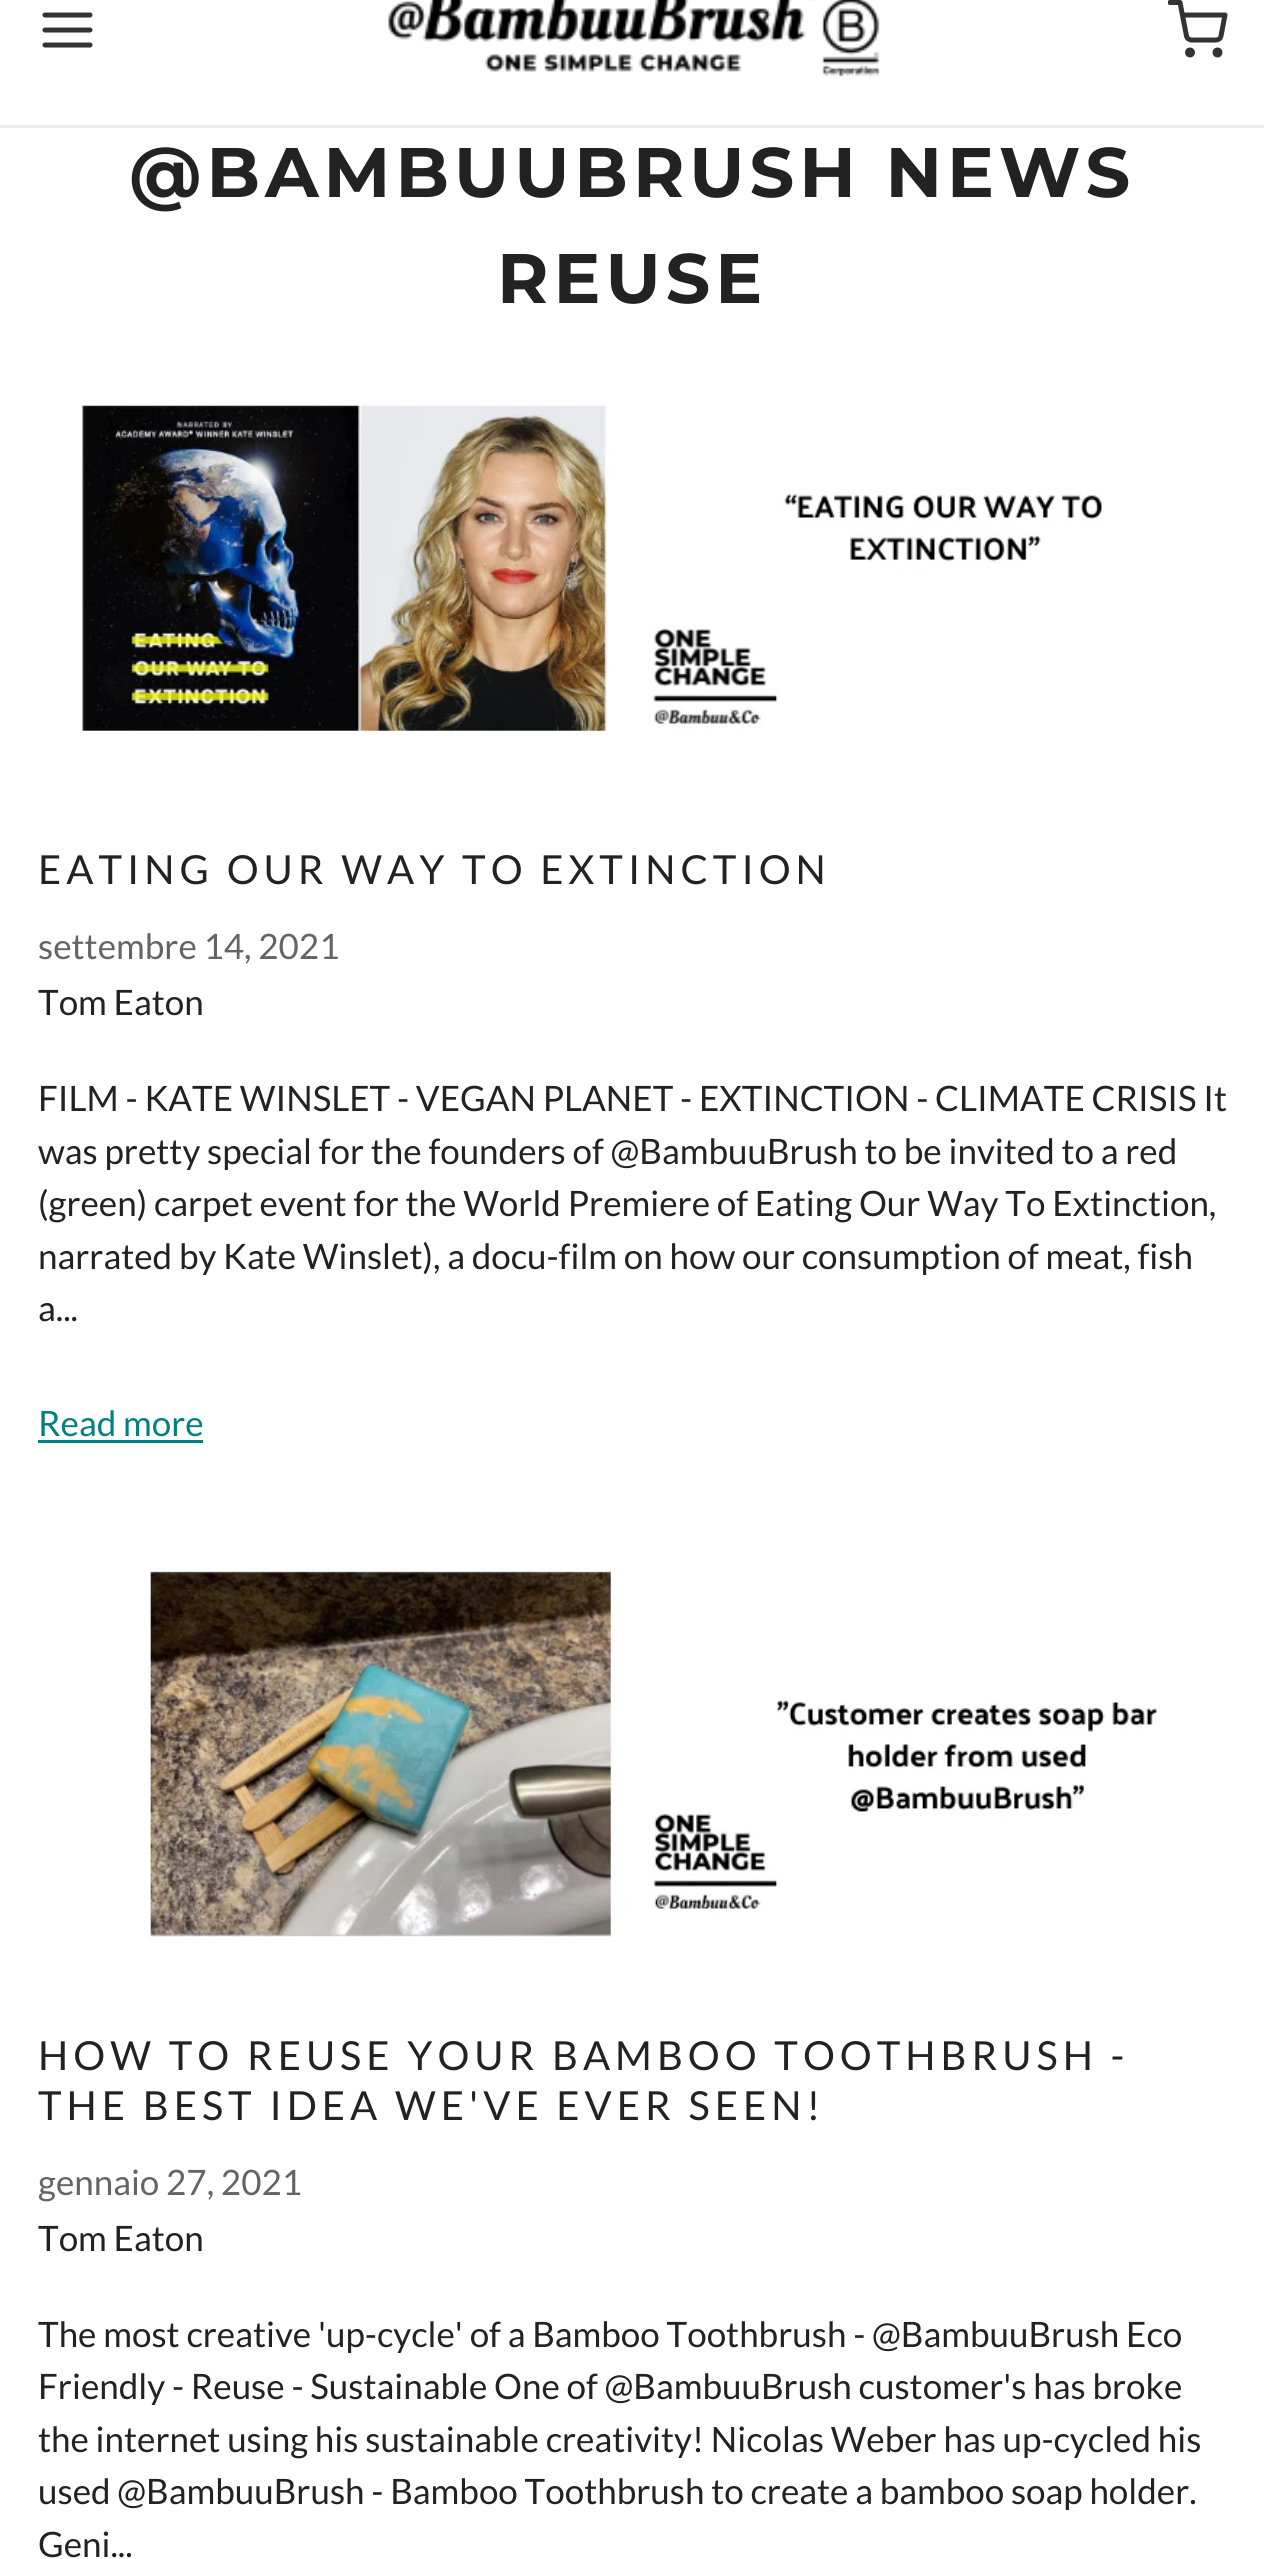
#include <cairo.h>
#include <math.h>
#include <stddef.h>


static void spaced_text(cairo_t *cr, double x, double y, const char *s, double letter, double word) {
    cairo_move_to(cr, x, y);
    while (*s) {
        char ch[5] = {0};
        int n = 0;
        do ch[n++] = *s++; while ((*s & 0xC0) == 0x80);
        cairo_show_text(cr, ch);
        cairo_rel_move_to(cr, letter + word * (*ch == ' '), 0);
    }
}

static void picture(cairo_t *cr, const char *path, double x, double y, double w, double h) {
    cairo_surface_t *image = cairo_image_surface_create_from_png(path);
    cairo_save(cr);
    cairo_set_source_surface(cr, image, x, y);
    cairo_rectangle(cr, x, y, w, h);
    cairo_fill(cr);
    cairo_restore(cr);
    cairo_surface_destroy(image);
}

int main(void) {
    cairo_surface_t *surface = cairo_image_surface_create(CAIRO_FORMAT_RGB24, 1264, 2559);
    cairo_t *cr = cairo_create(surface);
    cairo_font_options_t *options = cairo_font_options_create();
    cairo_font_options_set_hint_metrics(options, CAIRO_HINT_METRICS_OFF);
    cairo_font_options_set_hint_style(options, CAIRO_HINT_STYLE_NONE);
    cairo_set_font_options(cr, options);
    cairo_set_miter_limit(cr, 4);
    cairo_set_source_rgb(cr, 1, 1, 1);
    cairo_paint(cr);
    cairo_set_source_rgb(cr, 0.922, 0.922, 0.922);
    cairo_rectangle(cr, 0, 125, 1264, 3);
    cairo_fill(cr);
    cairo_new_path(cr);
    cairo_move_to(cr, 45, 30);
    cairo_line_to(cr, 90, 30);
    cairo_move_to(cr, 45, 15);
    cairo_line_to(cr, 90, 15);
    cairo_move_to(cr, 45, 45);
    cairo_line_to(cr, 90, 45);
    cairo_set_source_rgb(cr, 0.2, 0.2, 0.2);
    cairo_set_line_width(cr, 5);
    cairo_set_line_cap(cr, CAIRO_LINE_CAP_ROUND);
    cairo_set_line_join(cr, CAIRO_LINE_JOIN_ROUND);
    cairo_stroke(cr);
    picture(cr, "img1.png", 388, 0, 492, 77);
    cairo_save(cr);
    cairo_rectangle(cr, 1168, 0, 60, 60);
    cairo_clip(cr);
    cairo_new_path(cr);
    cairo_move_to(cr, 1170, 2.5);
    cairo_line_to(cr, 1180, 2.5);
    cairo_line_to(cr, 1186.5, 36);
    cairo_curve_to(cr, 1187, 38.5, 1189.5, 40, 1191.5, 40);
    cairo_line_to(cr, 1216, 40);
    cairo_curve_to(cr, 1218.5, 40, 1220.5, 38.5, 1221, 36);
    cairo_line_to(cr, 1225, 15);
    cairo_line_to(cr, 1182.5, 15);
    cairo_stroke(cr);
    cairo_restore(cr);
    cairo_arc(cr, 1190, 52.5, 2.5, 0, 2 * M_PI);
    cairo_set_line_cap(cr, CAIRO_LINE_CAP_BUTT);
    cairo_set_line_join(cr, CAIRO_LINE_JOIN_MITER);
    cairo_stroke(cr);
    cairo_arc(cr, 1217.5, 52.5, 2.5, 0, 2 * M_PI);
    cairo_stroke(cr);
    cairo_select_font_face(cr, "Montserrat", CAIRO_FONT_SLANT_NORMAL, CAIRO_FONT_WEIGHT_BOLD);
    cairo_set_font_size(cr, 70);
    cairo_set_source_rgb(cr, 0.133, 0.133, 0.133);
    spaced_text(cr, 129, 197, "@BAMBUUBRUSH NEWS", 5, 0);
    spaced_text(cr, 497, 303, "REUSE", 5, 0);
    picture(cr, "img2.png", 79, 405, 1025, 330);
    cairo_select_font_face(cr, "Lato", CAIRO_FONT_SLANT_NORMAL, CAIRO_FONT_WEIGHT_NORMAL);
    cairo_set_font_size(cr, 40);
    spaced_text(cr, 38, 884, "EATING OUR WAY TO EXTINCTION", 5, 0);
    cairo_set_font_size(cr, 35);
    cairo_set_source_rgb(cr, 0.392, 0.392, 0.392);
    cairo_move_to(cr, 38, 959);
    cairo_show_text(cr, "settembre 14, 2021");
    cairo_set_source_rgb(cr, 0.133, 0.133, 0.133);
    cairo_move_to(cr, 38, 1015);
    cairo_show_text(cr, "Tom Eaton");
    cairo_move_to(cr, 38, 1111);
    cairo_show_text(cr, "FILM - KATE WINSLET - VEGAN PLANET - EXTINCTION - CLIMATE CRISIS It");
    cairo_move_to(cr, 38, 1164);
    cairo_show_text(cr, "was pretty special for the founders of @BambuuBrush to be invited to a red");
    cairo_move_to(cr, 38, 1216);
    cairo_show_text(cr, "(green) carpet event for the World Premiere of Eating Our Way To Extinction,");
    cairo_move_to(cr, 38, 1269);
    cairo_show_text(cr, "narrated by Kate Winslet), a docu-film on how our consumption of meat, fish");
    cairo_move_to(cr, 38, 1321);
    cairo_show_text(cr, "a...");
    cairo_set_source_rgb(cr, 0, 0.502, 0.502);
    cairo_move_to(cr, 38, 1436);
    cairo_show_text(cr, "Read more");
    cairo_rectangle(cr, 38, 1440, 165, 3);
    cairo_fill(cr);
    picture(cr, "img3.png", 148, 1568, 1009, 375);
    cairo_set_font_size(cr, 40);
    cairo_set_source_rgb(cr, 0.133, 0.133, 0.133);
    spaced_text(cr, 38, 2070, "HOW TO REUSE YOUR BAMBOO TOOTHBRUSH -", 5, 0);
    spaced_text(cr, 38, 2120, "THE BEST IDEA WE'VE EVER SEEN!", 5, 0);
    cairo_set_font_size(cr, 35);
    cairo_set_source_rgb(cr, 0.392, 0.392, 0.392);
    cairo_move_to(cr, 38, 2195);
    cairo_show_text(cr, "gennaio 27, 2021");
    cairo_set_source_rgb(cr, 0.133, 0.133, 0.133);
    cairo_move_to(cr, 38, 2251);
    cairo_show_text(cr, "Tom Eaton");
    cairo_move_to(cr, 38, 2347);
    cairo_show_text(cr, "The most creative 'up-cycle' of a Bamboo Toothbrush - @BambuuBrush Eco");
    cairo_move_to(cr, 38, 2399);
    cairo_show_text(cr, "Friendly - Reuse - Sustainable One of @BambuuBrush customer's has broke");
    cairo_move_to(cr, 38, 2452);
    cairo_show_text(cr, "the internet using his sustainable creativity! Nicolas Weber has up-cycled his");
    cairo_move_to(cr, 38, 2504);
    cairo_show_text(cr, "used @BambuuBrush - Bamboo Toothbrush to create a bamboo soap holder.");
    cairo_move_to(cr, 38, 2557);
    cairo_show_text(cr, "Geni...");
    cairo_surface_write_to_png(surface, "page.png");
    cairo_font_options_destroy(options);
    cairo_destroy(cr);
    cairo_surface_destroy(surface);
    return 0;
}
